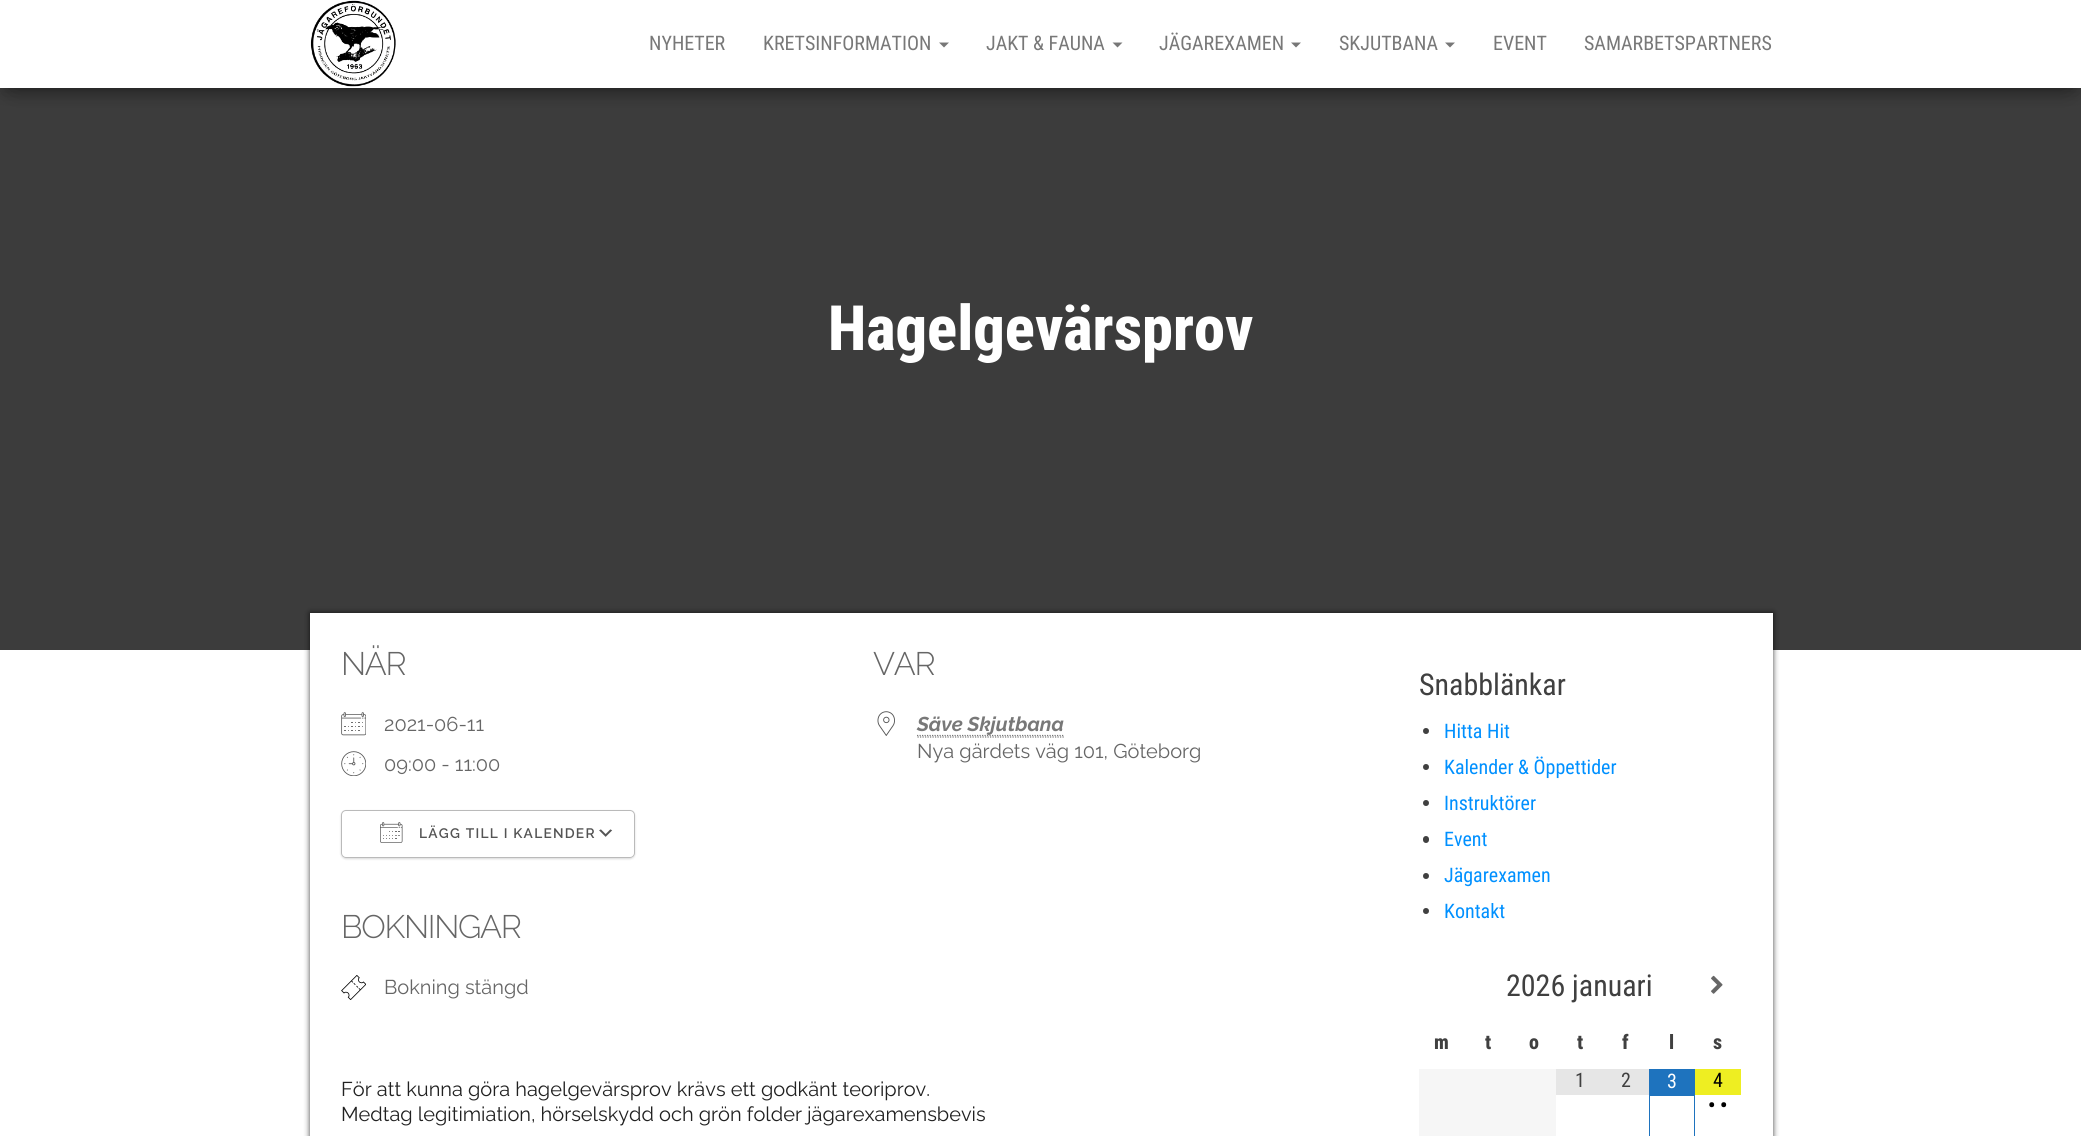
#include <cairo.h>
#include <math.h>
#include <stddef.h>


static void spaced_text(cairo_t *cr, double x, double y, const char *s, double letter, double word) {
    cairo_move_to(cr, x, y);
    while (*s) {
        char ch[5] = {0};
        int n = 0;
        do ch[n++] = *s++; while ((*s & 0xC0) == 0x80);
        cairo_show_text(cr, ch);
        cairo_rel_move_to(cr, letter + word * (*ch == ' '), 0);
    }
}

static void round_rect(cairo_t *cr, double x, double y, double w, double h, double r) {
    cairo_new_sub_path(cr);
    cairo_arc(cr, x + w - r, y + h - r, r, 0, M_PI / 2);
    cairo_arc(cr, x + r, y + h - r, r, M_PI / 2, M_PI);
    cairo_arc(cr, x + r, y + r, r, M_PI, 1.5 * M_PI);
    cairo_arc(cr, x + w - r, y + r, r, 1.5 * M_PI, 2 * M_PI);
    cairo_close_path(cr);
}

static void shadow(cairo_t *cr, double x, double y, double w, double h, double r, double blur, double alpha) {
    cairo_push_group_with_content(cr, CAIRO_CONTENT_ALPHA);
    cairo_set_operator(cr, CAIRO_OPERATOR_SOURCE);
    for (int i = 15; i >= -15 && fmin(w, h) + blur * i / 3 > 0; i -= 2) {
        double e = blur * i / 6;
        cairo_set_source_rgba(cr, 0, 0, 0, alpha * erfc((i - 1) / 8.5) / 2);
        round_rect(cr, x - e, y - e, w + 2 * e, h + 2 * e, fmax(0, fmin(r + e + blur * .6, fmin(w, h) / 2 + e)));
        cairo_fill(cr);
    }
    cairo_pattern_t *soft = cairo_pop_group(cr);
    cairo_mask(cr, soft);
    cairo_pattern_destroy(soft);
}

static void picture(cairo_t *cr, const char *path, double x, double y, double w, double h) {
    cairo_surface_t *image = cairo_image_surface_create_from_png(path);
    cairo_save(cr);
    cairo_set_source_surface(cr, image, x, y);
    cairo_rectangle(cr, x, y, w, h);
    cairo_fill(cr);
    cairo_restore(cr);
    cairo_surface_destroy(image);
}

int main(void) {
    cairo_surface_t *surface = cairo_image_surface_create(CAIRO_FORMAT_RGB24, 2081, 1136);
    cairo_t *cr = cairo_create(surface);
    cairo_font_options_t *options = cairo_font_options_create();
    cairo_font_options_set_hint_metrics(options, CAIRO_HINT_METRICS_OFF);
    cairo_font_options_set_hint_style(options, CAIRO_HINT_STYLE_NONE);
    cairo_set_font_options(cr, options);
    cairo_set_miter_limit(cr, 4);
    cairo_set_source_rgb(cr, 1, 1, 1);
    cairo_paint(cr);
    cairo_set_source_rgb(cr, 0.235, 0.235, 0.235);
    cairo_rectangle(cr, 0, 88, 2081, 562);
    cairo_fill(cr);
    cairo_set_source_rgb(cr, 0, 0, 0);
    shadow(cr, 6, 16, 2069, 75, 0, 6, 0.2);
    shadow(cr, 0, 4, 2081, 87, 0, 12.5, 0.12);
    shadow(cr, 15, 28, 2051, 57, 0, 12.5, 0.42);
    cairo_set_source_rgb(cr, 1, 1, 1);
    cairo_rectangle(cr, 0, 0, 2081, 88);
    cairo_fill(cr);
    picture(cr, "img1.png", 310, 0, 86, 87);
    cairo_select_font_face(cr, "Roboto Condensed", CAIRO_FONT_SLANT_NORMAL, CAIRO_FONT_WEIGHT_NORMAL);
    cairo_set_font_size(cr, 20);
    cairo_set_source_rgb(cr, 0.471, 0.471, 0.471);
    cairo_move_to(cr, 649, 50);
    cairo_show_text(cr, "NYHETER");
    cairo_move_to(cr, 763, 50);
    cairo_show_text(cr, "KRETSINFORMATION");
    cairo_set_source_rgb(cr, 0.467, 0.467, 0.467);
    cairo_new_path(cr);
    cairo_move_to(cr, 939, 42.5);
    cairo_line_to(cr, 949, 42.5);
    cairo_line_to(cr, 944, 47.5);
    cairo_close_path(cr);
    cairo_fill(cr);
    cairo_set_source_rgb(cr, 0.471, 0.471, 0.471);
    cairo_move_to(cr, 986, 50);
    cairo_show_text(cr, "JAKT & FAUNA");
    cairo_set_source_rgb(cr, 0.467, 0.467, 0.467);
    cairo_new_path(cr);
    cairo_move_to(cr, 1112.5, 42.5);
    cairo_line_to(cr, 1122.5, 42.5);
    cairo_line_to(cr, 1117.5, 47.5);
    cairo_close_path(cr);
    cairo_fill(cr);
    cairo_set_source_rgb(cr, 0.471, 0.471, 0.471);
    cairo_move_to(cr, 1159, 50);
    cairo_show_text(cr, "JÄGAREXAMEN");
    cairo_set_source_rgb(cr, 0.467, 0.467, 0.467);
    cairo_new_path(cr);
    cairo_move_to(cr, 1291, 42.5);
    cairo_line_to(cr, 1301, 42.5);
    cairo_line_to(cr, 1296, 47.5);
    cairo_close_path(cr);
    cairo_fill(cr);
    cairo_set_source_rgb(cr, 0.471, 0.471, 0.471);
    cairo_move_to(cr, 1339, 50);
    cairo_show_text(cr, "SKJUTBANA");
    cairo_set_source_rgb(cr, 0.467, 0.467, 0.467);
    cairo_new_path(cr);
    cairo_move_to(cr, 1445, 42.5);
    cairo_line_to(cr, 1455, 42.5);
    cairo_line_to(cr, 1450, 47.5);
    cairo_close_path(cr);
    cairo_fill(cr);
    cairo_set_source_rgb(cr, 0.471, 0.471, 0.471);
    cairo_move_to(cr, 1493, 50);
    cairo_show_text(cr, "EVENT");
    cairo_move_to(cr, 1584, 50);
    cairo_show_text(cr, "SAMARBETSPARTNERS");
    cairo_select_font_face(cr, "Roboto Condensed ExtraBold", CAIRO_FONT_SLANT_NORMAL, CAIRO_FONT_WEIGHT_NORMAL);
    cairo_set_font_size(cr, 62.5);
    cairo_set_source_rgb(cr, 1, 1, 1);
    cairo_move_to(cr, 828, 350);
    cairo_show_text(cr, "Hagelgevärsprov");
    cairo_set_source_rgb(cr, 0, 0, 0);
    shadow(cr, 310, 613, 1463, 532, 0, 3, 0.75);
    cairo_set_source_rgb(cr, 1, 1, 1);
    cairo_rectangle(cr, 310, 613, 1463, 523);
    cairo_fill(cr);
    cairo_select_font_face(cr, "Raleway Light", CAIRO_FONT_SLANT_NORMAL, CAIRO_FONT_WEIGHT_NORMAL);
    cairo_set_font_size(cr, 32.5);
    cairo_set_source_rgb(cr, 0.4, 0.4, 0.4);
    spaced_text(cr, 341, 675, "NÄR", -1.25, 0);
    picture(cr, "img2.png", 341, 712, 25, 24);
    cairo_select_font_face(cr, "Raleway", CAIRO_FONT_SLANT_NORMAL, CAIRO_FONT_WEIGHT_NORMAL);
    cairo_set_font_size(cr, 20);
    cairo_move_to(cr, 384, 731);
    cairo_show_text(cr, "2021-06-11");
    picture(cr, "img3.png", 341, 751, 25, 25);
    cairo_move_to(cr, 384, 771);
    cairo_show_text(cr, "09:00 - 11:00");
    cairo_save(cr);
    cairo_set_fill_rule(cr, CAIRO_FILL_RULE_EVEN_ODD);
    cairo_new_path(cr);
    cairo_move_to(cr, 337, 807);
    cairo_line_to(cr, 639, 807);
    cairo_line_to(cr, 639, 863);
    cairo_line_to(cr, 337, 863);
    cairo_close_path(cr);
    cairo_move_to(cr, 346, 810);
    cairo_line_to(cr, 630, 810);
    cairo_curve_to(cr, 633, 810, 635, 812, 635, 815);
    cairo_line_to(cr, 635, 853);
    cairo_curve_to(cr, 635, 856, 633, 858, 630, 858);
    cairo_line_to(cr, 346, 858);
    cairo_curve_to(cr, 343, 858, 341, 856, 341, 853);
    cairo_line_to(cr, 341, 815);
    cairo_curve_to(cr, 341, 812, 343, 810, 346, 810);
    cairo_close_path(cr);
    cairo_clip(cr);
    cairo_set_source_rgb(cr, 0, 0, 0);
    shadow(cr, 341, 811, 294, 48, 5, 1, 0.15);
    cairo_restore(cr);
    picture(cr, "img4.png", 599, 829, 14, 8);
    round_rect(cr, 341.5, 810.5, 293, 47, 4.5);
    cairo_set_source_rgb(cr, 0.729, 0.729, 0.729);
    cairo_set_line_width(cr, 1);
    cairo_stroke(cr);
    picture(cr, "img5.png", 380, 822, 23, 21);
    cairo_select_font_face(cr, "Raleway SemiBold", CAIRO_FONT_SLANT_NORMAL, CAIRO_FONT_WEIGHT_NORMAL);
    cairo_set_font_size(cr, 13.75);
    cairo_set_source_rgb(cr, 0.329, 0.329, 0.329);
    spaced_text(cr, 419, 838, "LÄGG TILL I KALENDER", 1.25, 0);
    cairo_select_font_face(cr, "Raleway Light", CAIRO_FONT_SLANT_NORMAL, CAIRO_FONT_WEIGHT_NORMAL);
    cairo_set_font_size(cr, 32.5);
    cairo_set_source_rgb(cr, 0.4, 0.4, 0.4);
    spaced_text(cr, 341, 938, "BOKNINGAR", -1.25, 0);
    picture(cr, "img6.png", 341, 975, 25, 25);
    cairo_select_font_face(cr, "Raleway", CAIRO_FONT_SLANT_NORMAL, CAIRO_FONT_WEIGHT_NORMAL);
    cairo_set_font_size(cr, 20);
    cairo_move_to(cr, 384, 994);
    cairo_show_text(cr, "Bokning stängd");
    cairo_select_font_face(cr, "Raleway Light", CAIRO_FONT_SLANT_NORMAL, CAIRO_FONT_WEIGHT_NORMAL);
    cairo_set_font_size(cr, 32.5);
    spaced_text(cr, 873, 675, "VAR", -1.25, 0);
    picture(cr, "img7.png", 877, 711, 18, 25);
    cairo_new_path(cr);
    cairo_move_to(cr, 917.5, 737);
    cairo_line_to(cr, 1064, 737);
    cairo_set_source_rgb(cr, 0.467, 0.467, 0.467);
    cairo_set_line_width(cr, 1.2);
    cairo_set_dash(cr, (double[]){1.25, 1.25}, 2, 0);
    cairo_stroke(cr);
    cairo_new_path(cr);
    cairo_move_to(cr, 917, 735.5);
    cairo_line_to(cr, 1064, 735.5);
    cairo_set_source_rgb(cr, 0.471, 0.471, 0.471);
    cairo_stroke(cr);
    cairo_select_font_face(cr, "Raleway", CAIRO_FONT_SLANT_ITALIC, CAIRO_FONT_WEIGHT_BOLD);
    cairo_set_font_size(cr, 20);
    cairo_move_to(cr, 917, 731);
    cairo_show_text(cr, "Säve Skjutbana");
    cairo_select_font_face(cr, "Raleway", CAIRO_FONT_SLANT_NORMAL, CAIRO_FONT_WEIGHT_NORMAL);
    cairo_set_source_rgb(cr, 0.4, 0.4, 0.4);
    cairo_move_to(cr, 917, 758);
    cairo_show_text(cr, "Nya gärdets väg 101, Göteborg");
    cairo_set_source_rgb(cr, 0.129, 0.129, 0.129);
    cairo_move_to(cr, 341, 1096);
    cairo_show_text(cr, "För att kunna göra hagelgevärsprov krävs ett godkänt teoriprov.");
    cairo_move_to(cr, 341, 1121);
    cairo_show_text(cr, "Medtag legitimiation, hörselskydd och grön folder jägarexamensbevis");
    cairo_select_font_face(cr, "Roboto Condensed", CAIRO_FONT_SLANT_NORMAL, CAIRO_FONT_WEIGHT_NORMAL);
    cairo_set_font_size(cr, 30);
    cairo_set_source_rgb(cr, 0.251, 0.251, 0.251);
    cairo_move_to(cr, 1419, 695);
    cairo_show_text(cr, "Snabblänkar");
    cairo_new_path(cr);
    cairo_arc(cr, 1426, 731, 3, 0, 2 * M_PI);
    cairo_fill(cr);
    cairo_set_font_size(cr, 20);
    cairo_set_source_rgb(cr, 0, 0.565, 1);
    cairo_move_to(cr, 1444, 738);
    cairo_show_text(cr, "Hitta Hit");
    cairo_set_source_rgb(cr, 0.251, 0.251, 0.251);
    cairo_new_path(cr);
    cairo_arc(cr, 1426, 767, 3, 0, 2 * M_PI);
    cairo_fill(cr);
    cairo_set_source_rgb(cr, 0, 0.565, 1);
    cairo_move_to(cr, 1444, 774);
    cairo_show_text(cr, "Kalender & Öppettider");
    cairo_set_source_rgb(cr, 0.251, 0.251, 0.251);
    cairo_new_path(cr);
    cairo_arc(cr, 1426, 803, 3, 0, 2 * M_PI);
    cairo_fill(cr);
    cairo_set_source_rgb(cr, 0, 0.565, 1);
    cairo_move_to(cr, 1444, 810);
    cairo_show_text(cr, "Instruktörer");
    cairo_set_source_rgb(cr, 0.251, 0.251, 0.251);
    round_rect(cr, 1423, 836, 6, 7, 3);
    cairo_fill(cr);
    cairo_set_source_rgb(cr, 0, 0.565, 1);
    cairo_move_to(cr, 1444, 846);
    cairo_show_text(cr, "Event");
    cairo_set_source_rgb(cr, 0.251, 0.251, 0.251);
    cairo_new_path(cr);
    cairo_arc(cr, 1426, 876, 3, 0, 2 * M_PI);
    cairo_fill(cr);
    cairo_set_source_rgb(cr, 0, 0.565, 1);
    cairo_move_to(cr, 1444, 882);
    cairo_show_text(cr, "Jägarexamen");
    cairo_set_source_rgb(cr, 0.251, 0.251, 0.251);
    cairo_new_path(cr);
    cairo_arc(cr, 1426, 911, 3, 0, 2 * M_PI);
    cairo_fill(cr);
    cairo_set_source_rgb(cr, 0, 0.565, 1);
    cairo_move_to(cr, 1444, 918);
    cairo_show_text(cr, "Kontakt");
    cairo_set_font_size(cr, 30);
    cairo_set_source_rgb(cr, 0.251, 0.251, 0.251);
    cairo_move_to(cr, 1506, 996);
    cairo_show_text(cr, "2026 januari");
    picture(cr, "img8.png", 1711, 975, 12, 19);
    cairo_select_font_face(cr, "Roboto Condensed ExtraBold", CAIRO_FONT_SLANT_NORMAL, CAIRO_FONT_WEIGHT_NORMAL);
    cairo_set_font_size(cr, 20);
    cairo_move_to(cr, 1434, 1049);
    cairo_show_text(cr, "m");
    cairo_move_to(cr, 1485, 1049);
    cairo_show_text(cr, "t");
    cairo_move_to(cr, 1529, 1049);
    cairo_show_text(cr, "o");
    cairo_move_to(cr, 1577, 1049);
    cairo_show_text(cr, "t");
    cairo_move_to(cr, 1622, 1049);
    cairo_show_text(cr, "f");
    cairo_move_to(cr, 1669, 1049);
    cairo_show_text(cr, "l");
    cairo_move_to(cr, 1713, 1049);
    cairo_show_text(cr, "s");
    cairo_set_source_rgb(cr, 0.961, 0.961, 0.961);
    cairo_rectangle(cr, 1419, 1069, 137, 67);
    cairo_fill(cr);
    cairo_set_source_rgb(cr, 0.902, 0.902, 0.902);
    cairo_rectangle(cr, 1556, 1069, 93, 26);
    cairo_fill(cr);
    cairo_select_font_face(cr, "Roboto Condensed", CAIRO_FONT_SLANT_NORMAL, CAIRO_FONT_WEIGHT_NORMAL);
    cairo_set_source_rgb(cr, 0.251, 0.251, 0.251);
    cairo_move_to(cr, 1575, 1087);
    cairo_show_text(cr, "1");
    cairo_move_to(cr, 1621, 1087);
    cairo_show_text(cr, "2");
    cairo_rectangle(cr, 1649.5, 1069.5, 45, 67);
    cairo_set_source_rgb(cr, 0.118, 0.451, 0.745);
    cairo_set_line_width(cr, 1);
    cairo_set_dash(cr, NULL, 0, 0);
    cairo_stroke(cr);
    cairo_rectangle(cr, 1650, 1070, 44, 26);
    cairo_fill(cr);
    cairo_set_source_rgb(cr, 1, 1, 1);
    cairo_move_to(cr, 1667, 1088);
    cairo_show_text(cr, "3");
    cairo_set_source_rgb(cr, 0.933, 0.933, 0.133);
    cairo_rectangle(cr, 1695, 1069, 46, 26);
    cairo_fill(cr);
    cairo_set_source_rgb(cr, 0, 0, 0);
    cairo_move_to(cr, 1713, 1087);
    cairo_show_text(cr, "4");
    cairo_select_font_face(cr, "Roboto Condensed ExtraBold", CAIRO_FONT_SLANT_NORMAL, CAIRO_FONT_WEIGHT_NORMAL);
    cairo_move_to(cr, 1708, 1112);
    cairo_show_text(cr, "• •");
    cairo_surface_write_to_png(surface, "page.png");
    cairo_font_options_destroy(options);
    cairo_destroy(cr);
    cairo_surface_destroy(surface);
    return 0;
}
